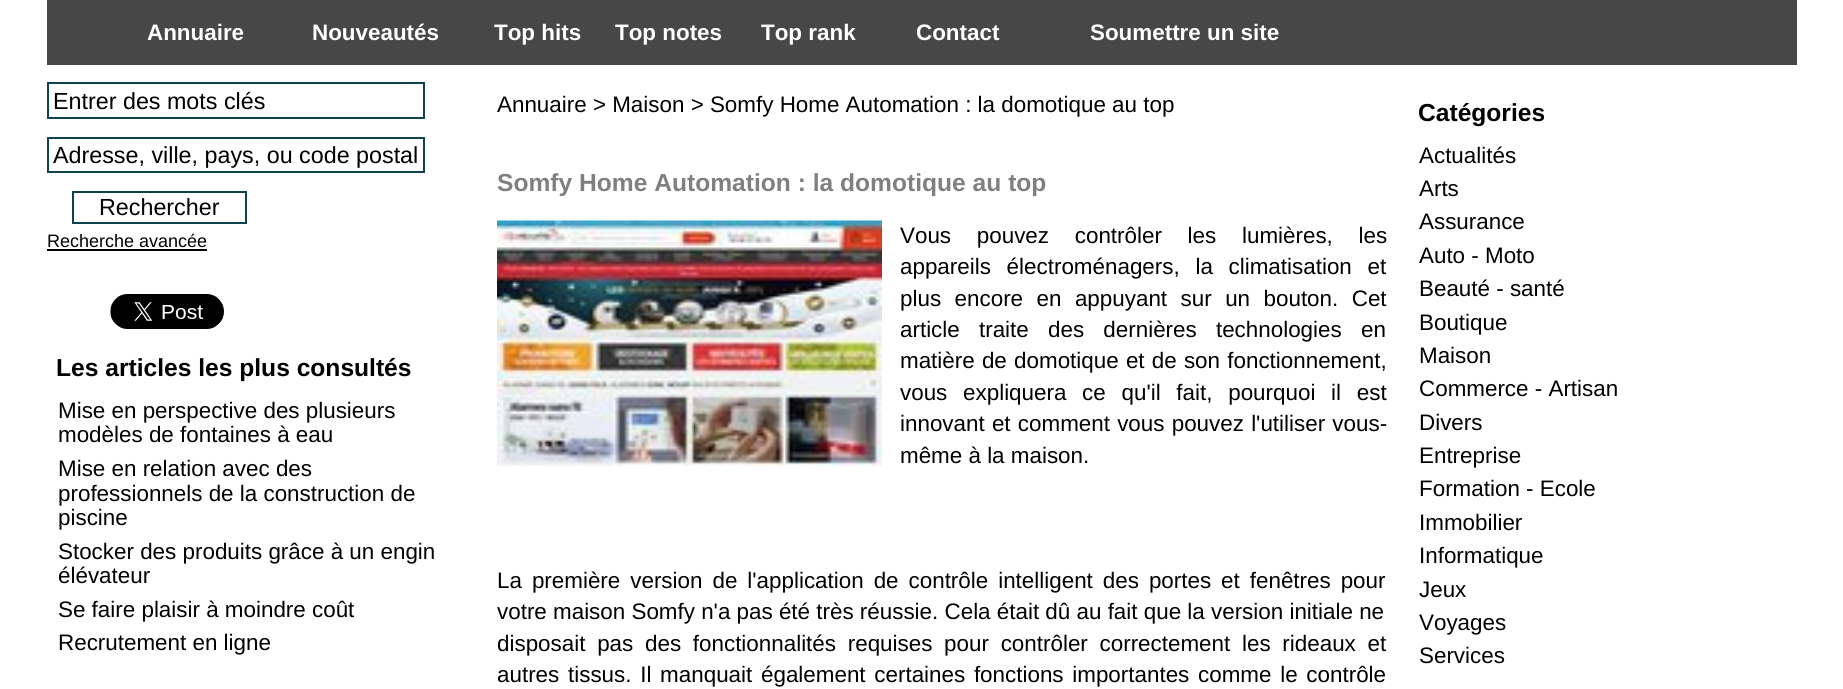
#include <cairo.h>
#include <math.h>
#include <stddef.h>


static void spaced_text(cairo_t *cr, double x, double y, const char *s, double letter, double word) {
    cairo_move_to(cr, x, y);
    while (*s) {
        char ch[5] = {0};
        int n = 0;
        do ch[n++] = *s++; while ((*s & 0xC0) == 0x80);
        cairo_show_text(cr, ch);
        cairo_rel_move_to(cr, letter + word * (*ch == ' '), 0);
    }
}

static void picture(cairo_t *cr, const char *path, double x, double y, double w, double h) {
    cairo_surface_t *image = cairo_image_surface_create_from_png(path);
    cairo_save(cr);
    cairo_set_source_surface(cr, image, x, y);
    cairo_rectangle(cr, x, y, w, h);
    cairo_fill(cr);
    cairo_restore(cr);
    cairo_surface_destroy(image);
}

int main(void) {
    cairo_surface_t *surface = cairo_image_surface_create(CAIRO_FORMAT_RGB24, 1843, 689);
    cairo_t *cr = cairo_create(surface);
    cairo_font_options_t *options = cairo_font_options_create();
    cairo_font_options_set_hint_metrics(options, CAIRO_HINT_METRICS_OFF);
    cairo_font_options_set_hint_style(options, CAIRO_HINT_STYLE_NONE);
    cairo_set_font_options(cr, options);
    cairo_set_miter_limit(cr, 4);
    cairo_set_source_rgb(cr, 1, 1, 1);
    cairo_paint(cr);
    cairo_set_source_rgb(cr, 0.278, 0.278, 0.278);
    cairo_rectangle(cr, 47, 0, 1750, 65);
    cairo_fill(cr);
    cairo_select_font_face(cr, "Liberation Sans", CAIRO_FONT_SLANT_NORMAL, CAIRO_FONT_WEIGHT_BOLD);
    cairo_set_font_size(cr, 22.4);
    cairo_set_source_rgb(cr, 1, 1, 1);
    cairo_move_to(cr, 147, 40);
    cairo_show_text(cr, "Annuaire");
    cairo_move_to(cr, 312, 40);
    cairo_show_text(cr, "Nouveautés");
    cairo_move_to(cr, 494, 40);
    cairo_show_text(cr, "Top hits");
    cairo_move_to(cr, 615, 40);
    cairo_show_text(cr, "Top notes");
    cairo_move_to(cr, 761, 40);
    cairo_show_text(cr, "Top rank");
    cairo_move_to(cr, 916, 40);
    cairo_show_text(cr, "Contact");
    cairo_move_to(cr, 1090, 40);
    cairo_show_text(cr, "Soumettre un site");
    cairo_rectangle(cr, 48, 83, 376, 35);
    cairo_set_source_rgb(cr, 0.063, 0.255, 0.31);
    cairo_stroke(cr);
    cairo_select_font_face(cr, "Liberation Sans", CAIRO_FONT_SLANT_NORMAL, CAIRO_FONT_WEIGHT_NORMAL);
    cairo_set_font_size(cr, 23.3);
    cairo_set_source_rgb(cr, 0, 0, 0);
    cairo_move_to(cr, 53, 109);
    cairo_show_text(cr, "Entrer des mots clés");
    cairo_rectangle(cr, 48, 138, 376, 34);
    cairo_set_source_rgb(cr, 0.063, 0.255, 0.31);
    cairo_stroke(cr);
    cairo_set_source_rgb(cr, 0, 0, 0);
    cairo_move_to(cr, 53, 163);
    cairo_show_text(cr, "Adresse, ville, pays, ou code postal");
    cairo_rectangle(cr, 73, 192, 173, 31);
    cairo_set_source_rgb(cr, 0.063, 0.255, 0.31);
    cairo_stroke(cr);
    cairo_set_source_rgb(cr, 0, 0, 0);
    cairo_move_to(cr, 99, 215);
    cairo_show_text(cr, "Rechercher");
    cairo_set_font_size(cr, 18);
    cairo_move_to(cr, 47, 247);
    cairo_show_text(cr, "Recherche avancée");
    cairo_rectangle(cr, 47, 249, 160, 2);
    cairo_fill(cr);
    picture(cr, "img1.png", 110, 294, 114, 35);
    cairo_select_font_face(cr, "Liberation Sans", CAIRO_FONT_SLANT_NORMAL, CAIRO_FONT_WEIGHT_BOLD);
    cairo_set_font_size(cr, 24.6);
    cairo_move_to(cr, 56, 376);
    cairo_show_text(cr, "Les articles les plus consultés");
    cairo_select_font_face(cr, "Liberation Sans", CAIRO_FONT_SLANT_NORMAL, CAIRO_FONT_WEIGHT_NORMAL);
    cairo_set_font_size(cr, 22.4);
    cairo_move_to(cr, 58, 418);
    cairo_show_text(cr, "Mise en perspective des plusieurs");
    cairo_move_to(cr, 58, 442);
    cairo_show_text(cr, "modèles de fontaines à eau");
    cairo_move_to(cr, 58, 476);
    cairo_show_text(cr, "Mise en relation avec des");
    cairo_move_to(cr, 58, 501);
    cairo_show_text(cr, "professionnels de la construction de");
    cairo_move_to(cr, 58, 525);
    cairo_show_text(cr, "piscine");
    cairo_move_to(cr, 58, 559);
    cairo_show_text(cr, "Stocker des produits grâce à un engin");
    cairo_move_to(cr, 58, 583);
    cairo_show_text(cr, "élévateur");
    cairo_move_to(cr, 58, 617);
    cairo_show_text(cr, "Se faire plaisir à moindre coût");
    cairo_move_to(cr, 58, 650);
    cairo_show_text(cr, "Recrutement en ligne");
    cairo_move_to(cr, 497, 112);
    cairo_show_text(cr, "Annuaire > Maison > Somfy Home Automation : la domotique au top");
    cairo_select_font_face(cr, "Liberation Sans", CAIRO_FONT_SLANT_NORMAL, CAIRO_FONT_WEIGHT_BOLD);
    cairo_set_font_size(cr, 24.6);
    cairo_set_source_rgb(cr, 0.502, 0.502, 0.502);
    cairo_move_to(cr, 497, 191);
    cairo_show_text(cr, "Somfy Home Automation : la domotique au top");
    picture(cr, "img2.png", 497, 220, 385, 246);
    cairo_select_font_face(cr, "Liberation Sans", CAIRO_FONT_SLANT_NORMAL, CAIRO_FONT_WEIGHT_NORMAL);
    cairo_set_font_size(cr, 22.4);
    cairo_set_source_rgb(cr, 0, 0, 0);
    spaced_text(cr, 900, 243, "Vous pouvez contrôler les lumières, les", 0, 19.5);
    spaced_text(cr, 900, 274, "appareils électroménagers, la climatisation et", 0, 9.5);
    spaced_text(cr, 900, 306, "plus encore en appuyant sur un bouton. Cet", 0, 7.25);
    spaced_text(cr, 900, 337, "article traite des dernières technologies en", 0, 13);
    spaced_text(cr, 900, 368, "matière de domotique et de son fonctionnement,", 0, 1);
    spaced_text(cr, 900, 400, "vous expliquera ce qu'il fait, pourquoi il est", 0, 9.5);
    spaced_text(cr, 900, 431, "innovant et comment vous pouvez l'utiliser vous-", 0, 1);
    cairo_move_to(cr, 900, 463);
    cairo_show_text(cr, "même à la maison.");
    spaced_text(cr, 497, 588, "La première version de l'application de contrôle intelligent des portes et fenêtres pour", 0, 3.75);
    cairo_move_to(cr, 497, 619);
    cairo_show_text(cr, "votre maison Somfy n'a pas été très réussie. Cela était dû au fait que la version initiale ne");
    spaced_text(cr, 497, 651, "disposait pas des fonctionnalités requises pour contrôler correctement les rideaux et", 0, 5.5);
    spaced_text(cr, 497, 682, "autres tissus. Il manquait également certaines fonctions importantes comme le contrôle", 0, 2.5);
    cairo_select_font_face(cr, "Liberation Sans", CAIRO_FONT_SLANT_NORMAL, CAIRO_FONT_WEIGHT_BOLD);
    cairo_set_font_size(cr, 24.6);
    cairo_move_to(cr, 1418, 121);
    cairo_show_text(cr, "Catégories");
    cairo_select_font_face(cr, "Liberation Sans", CAIRO_FONT_SLANT_NORMAL, CAIRO_FONT_WEIGHT_NORMAL);
    cairo_set_font_size(cr, 22.4);
    cairo_move_to(cr, 1419, 163);
    cairo_show_text(cr, "Actualités");
    cairo_move_to(cr, 1419, 196);
    cairo_show_text(cr, "Arts");
    cairo_move_to(cr, 1419, 229);
    cairo_show_text(cr, "Assurance");
    cairo_move_to(cr, 1419, 263);
    cairo_show_text(cr, "Auto - Moto");
    cairo_move_to(cr, 1419, 296);
    cairo_show_text(cr, "Beauté - santé");
    cairo_move_to(cr, 1419, 330);
    cairo_show_text(cr, "Boutique");
    cairo_move_to(cr, 1419, 363);
    cairo_show_text(cr, "Maison");
    cairo_move_to(cr, 1419, 396);
    cairo_show_text(cr, "Commerce - Artisan");
    cairo_move_to(cr, 1419, 430);
    cairo_show_text(cr, "Divers");
    cairo_move_to(cr, 1419, 463);
    cairo_show_text(cr, "Entreprise");
    cairo_move_to(cr, 1419, 496);
    cairo_show_text(cr, "Formation - Ecole");
    cairo_move_to(cr, 1419, 530);
    cairo_show_text(cr, "Immobilier");
    cairo_move_to(cr, 1419, 563);
    cairo_show_text(cr, "Informatique");
    cairo_move_to(cr, 1419, 597);
    cairo_show_text(cr, "Jeux");
    cairo_move_to(cr, 1419, 630);
    cairo_show_text(cr, "Voyages");
    cairo_move_to(cr, 1419, 663);
    cairo_show_text(cr, "Services");
    cairo_surface_write_to_png(surface, "page.png");
    cairo_font_options_destroy(options);
    cairo_destroy(cr);
    cairo_surface_destroy(surface);
    return 0;
}
